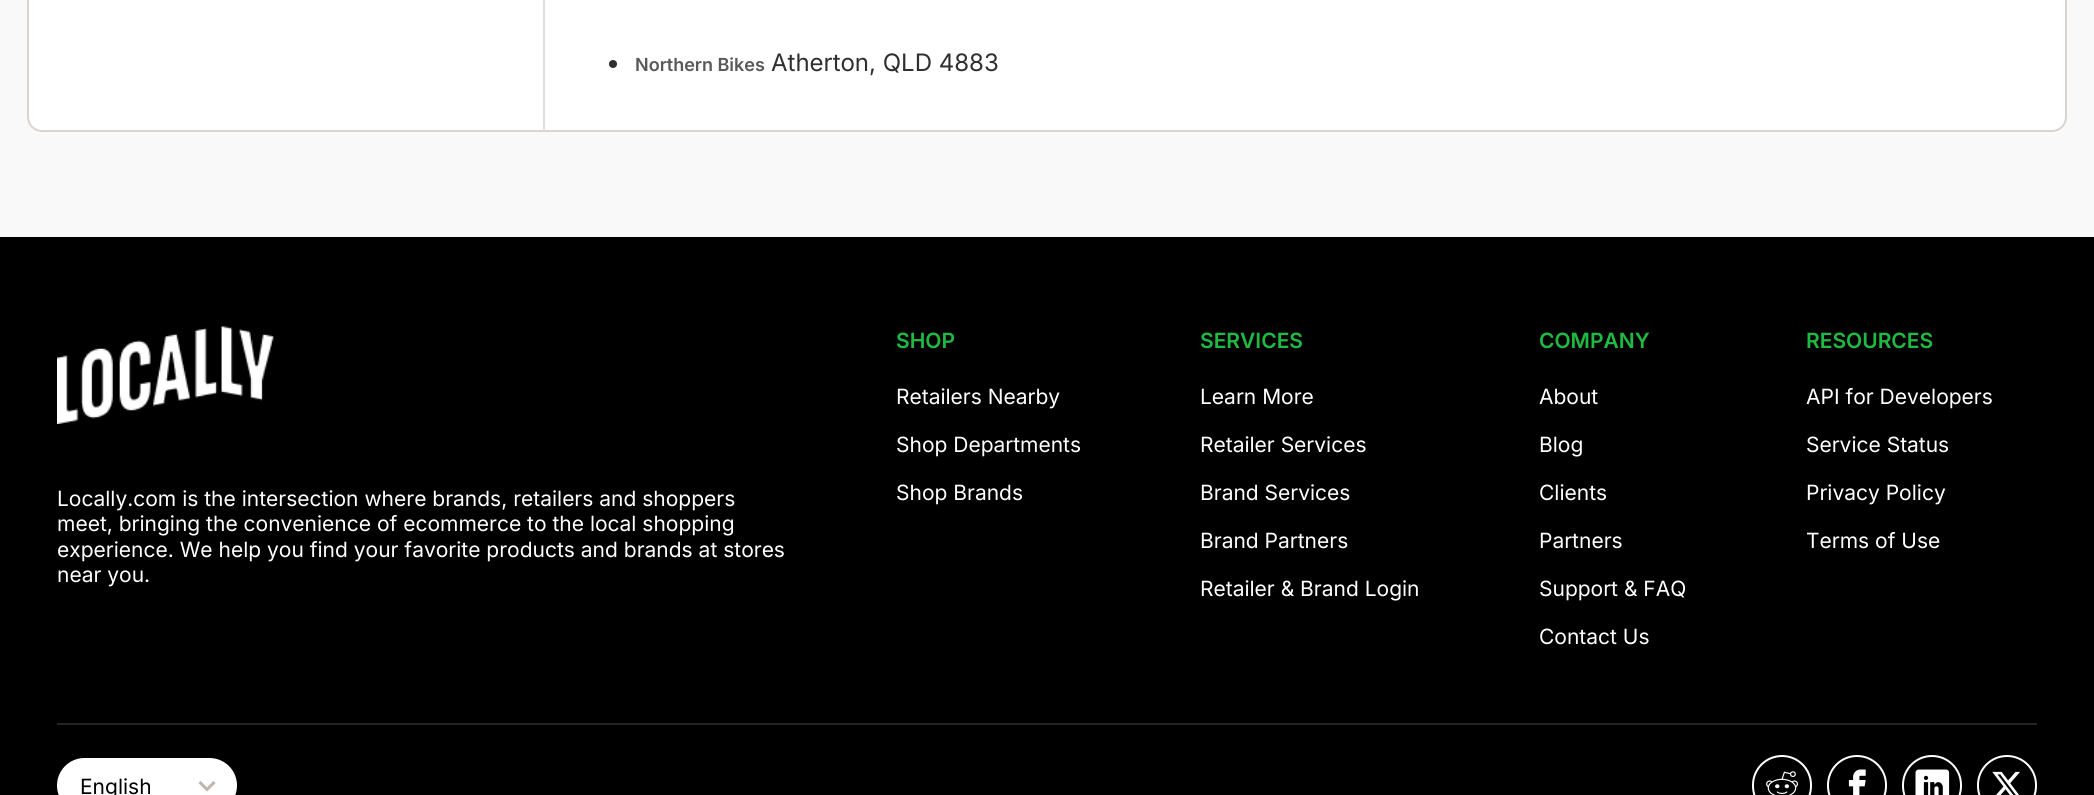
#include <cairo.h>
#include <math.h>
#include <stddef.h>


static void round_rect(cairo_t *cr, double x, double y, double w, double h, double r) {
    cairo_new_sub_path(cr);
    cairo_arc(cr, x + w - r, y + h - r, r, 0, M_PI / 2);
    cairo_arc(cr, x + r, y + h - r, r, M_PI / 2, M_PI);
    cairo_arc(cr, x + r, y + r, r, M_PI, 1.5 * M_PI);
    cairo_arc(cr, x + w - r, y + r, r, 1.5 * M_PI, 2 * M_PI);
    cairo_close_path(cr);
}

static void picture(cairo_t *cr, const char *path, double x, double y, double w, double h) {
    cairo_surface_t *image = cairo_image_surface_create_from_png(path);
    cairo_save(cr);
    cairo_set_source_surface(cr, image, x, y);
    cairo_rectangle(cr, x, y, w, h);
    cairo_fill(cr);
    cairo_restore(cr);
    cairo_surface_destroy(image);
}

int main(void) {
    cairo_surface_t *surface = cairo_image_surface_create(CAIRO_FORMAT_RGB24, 2094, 795);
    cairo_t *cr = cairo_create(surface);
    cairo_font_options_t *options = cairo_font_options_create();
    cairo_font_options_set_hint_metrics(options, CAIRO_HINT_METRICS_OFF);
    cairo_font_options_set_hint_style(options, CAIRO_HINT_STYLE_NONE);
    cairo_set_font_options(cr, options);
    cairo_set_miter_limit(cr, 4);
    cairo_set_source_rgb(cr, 0.973, 0.973, 0.973);
    cairo_paint(cr);
    cairo_set_source_rgb(cr, 1, 1, 1);
    round_rect(cr, 28, -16, 2038, 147, 14);
    cairo_fill_preserve(cr);
    cairo_set_source_rgb(cr, 0.851, 0.831, 0.812);
    cairo_stroke(cr);
    cairo_set_source_rgb(cr, 0.871, 0.871, 0.871);
    cairo_rectangle(cr, 543, 0, 2, 131);
    cairo_fill(cr);
    cairo_set_source_rgb(cr, 0.192, 0.18, 0.18);
    cairo_arc(cr, 613, 64, 4, 0, 2 * M_PI);
    cairo_fill(cr);
    cairo_select_font_face(cr, "Inter SemiBold", CAIRO_FONT_SLANT_NORMAL, CAIRO_FONT_WEIGHT_NORMAL);
    cairo_set_font_size(cr, 18);
    cairo_set_source_rgb(cr, 0.349, 0.349, 0.349);
    cairo_move_to(cr, 635, 71);
    cairo_show_text(cr, "Northern Bikes");
    cairo_select_font_face(cr, "Inter", CAIRO_FONT_SLANT_NORMAL, CAIRO_FONT_WEIGHT_NORMAL);
    cairo_set_font_size(cr, 24);
    cairo_set_source_rgb(cr, 0.192, 0.18, 0.18);
    cairo_move_to(cr, 771, 71);
    cairo_show_text(cr, "Atherton, QLD 4883");
    cairo_set_source_rgb(cr, 0, 0, 0);
    cairo_rectangle(cr, 0, 237, 2094, 558);
    cairo_fill(cr);
    cairo_set_source_rgb(cr, 0.149, 0.141, 0.137);
    cairo_rectangle(cr, 57, 723, 1980, 2);
    cairo_fill(cr);
    picture(cr, "img1.png", 57, 326, 217, 98);
    cairo_set_font_size(cr, 21);
    cairo_set_source_rgb(cr, 1, 1, 1);
    cairo_move_to(cr, 57, 506);
    cairo_show_text(cr, "Locally.com is the intersection where brands, retailers and shoppers");
    cairo_move_to(cr, 57, 531);
    cairo_show_text(cr, "meet, bringing the convenience of ecommerce to the local shopping");
    cairo_move_to(cr, 57, 557);
    cairo_show_text(cr, "experience. We help you find your favorite products and brands at stores");
    cairo_move_to(cr, 57, 582);
    cairo_show_text(cr, "near you.");
    cairo_select_font_face(cr, "Inter SemiBold", CAIRO_FONT_SLANT_NORMAL, CAIRO_FONT_WEIGHT_NORMAL);
    cairo_set_source_rgb(cr, 0.118, 0.729, 0.259);
    cairo_move_to(cr, 896, 348);
    cairo_show_text(cr, "SHOP");
    cairo_select_font_face(cr, "Inter", CAIRO_FONT_SLANT_NORMAL, CAIRO_FONT_WEIGHT_NORMAL);
    cairo_set_source_rgb(cr, 1, 1, 1);
    cairo_move_to(cr, 896, 404);
    cairo_show_text(cr, "Retailers Nearby");
    cairo_move_to(cr, 896, 452);
    cairo_show_text(cr, "Shop Departments");
    cairo_move_to(cr, 896, 500);
    cairo_show_text(cr, "Shop Brands");
    cairo_select_font_face(cr, "Inter SemiBold", CAIRO_FONT_SLANT_NORMAL, CAIRO_FONT_WEIGHT_NORMAL);
    cairo_set_source_rgb(cr, 0.118, 0.729, 0.259);
    cairo_move_to(cr, 1200, 348);
    cairo_show_text(cr, "SERVICES");
    cairo_select_font_face(cr, "Inter", CAIRO_FONT_SLANT_NORMAL, CAIRO_FONT_WEIGHT_NORMAL);
    cairo_set_source_rgb(cr, 1, 1, 1);
    cairo_move_to(cr, 1200, 404);
    cairo_show_text(cr, "Learn More");
    cairo_move_to(cr, 1200, 452);
    cairo_show_text(cr, "Retailer Services");
    cairo_move_to(cr, 1200, 500);
    cairo_show_text(cr, "Brand Services");
    cairo_move_to(cr, 1200, 548);
    cairo_show_text(cr, "Brand Partners");
    cairo_move_to(cr, 1200, 596);
    cairo_show_text(cr, "Retailer & Brand Login");
    cairo_select_font_face(cr, "Inter SemiBold", CAIRO_FONT_SLANT_NORMAL, CAIRO_FONT_WEIGHT_NORMAL);
    cairo_set_source_rgb(cr, 0.118, 0.729, 0.259);
    cairo_move_to(cr, 1539, 348);
    cairo_show_text(cr, "COMPANY");
    cairo_select_font_face(cr, "Inter", CAIRO_FONT_SLANT_NORMAL, CAIRO_FONT_WEIGHT_NORMAL);
    cairo_set_source_rgb(cr, 1, 1, 1);
    cairo_move_to(cr, 1539, 404);
    cairo_show_text(cr, "About");
    cairo_move_to(cr, 1539, 452);
    cairo_show_text(cr, "Blog");
    cairo_move_to(cr, 1539, 500);
    cairo_show_text(cr, "Clients");
    cairo_move_to(cr, 1539, 548);
    cairo_show_text(cr, "Partners");
    cairo_move_to(cr, 1539, 596);
    cairo_show_text(cr, "Support & FAQ");
    cairo_move_to(cr, 1539, 644);
    cairo_show_text(cr, "Contact Us");
    cairo_select_font_face(cr, "Inter SemiBold", CAIRO_FONT_SLANT_NORMAL, CAIRO_FONT_WEIGHT_NORMAL);
    cairo_set_source_rgb(cr, 0.118, 0.729, 0.259);
    cairo_move_to(cr, 1806, 348);
    cairo_show_text(cr, "RESOURCES");
    cairo_select_font_face(cr, "Inter", CAIRO_FONT_SLANT_NORMAL, CAIRO_FONT_WEIGHT_NORMAL);
    cairo_set_source_rgb(cr, 1, 1, 1);
    cairo_move_to(cr, 1806, 404);
    cairo_show_text(cr, "API for Developers");
    cairo_move_to(cr, 1806, 452);
    cairo_show_text(cr, "Service Status");
    cairo_move_to(cr, 1806, 500);
    cairo_show_text(cr, "Privacy Policy");
    cairo_move_to(cr, 1806, 548);
    cairo_show_text(cr, "Terms of Use");
    round_rect(cr, 57, 758, 180, 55, 27.5);
    cairo_fill(cr);
    cairo_new_path(cr);
    cairo_move_to(cr, 214.5, 782);
    cairo_line_to(cr, 207, 789.5);
    cairo_line_to(cr, 199.5, 782);
    cairo_set_source_rgb(cr, 0.745, 0.714, 0.682);
    cairo_set_line_width(cr, 3);
    cairo_stroke(cr);
    cairo_set_source_rgb(cr, 0, 0, 0);
    cairo_move_to(cr, 80, 794);
    cairo_show_text(cr, "English");
    round_rect(cr, 1753, 756, 58, 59, 29);
    cairo_set_source_rgb(cr, 1, 1, 1);
    cairo_set_line_width(cr, 2);
    cairo_stroke(cr);
    picture(cr, "img2.png", 1766, 771, 32, 24);
    round_rect(cr, 1828, 756, 58, 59, 29);
    cairo_stroke(cr);
    picture(cr, "img3.png", 1848, 769, 18, 26);
    round_rect(cr, 1903, 756, 58, 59, 29);
    cairo_stroke(cr);
    picture(cr, "img4.png", 1915, 769, 35, 26);
    round_rect(cr, 1978, 756, 58, 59, 29);
    cairo_stroke(cr);
    picture(cr, "img5.png", 1992, 771, 28, 24);
    cairo_surface_write_to_png(surface, "page.png");
    cairo_font_options_destroy(options);
    cairo_destroy(cr);
    cairo_surface_destroy(surface);
    return 0;
}
